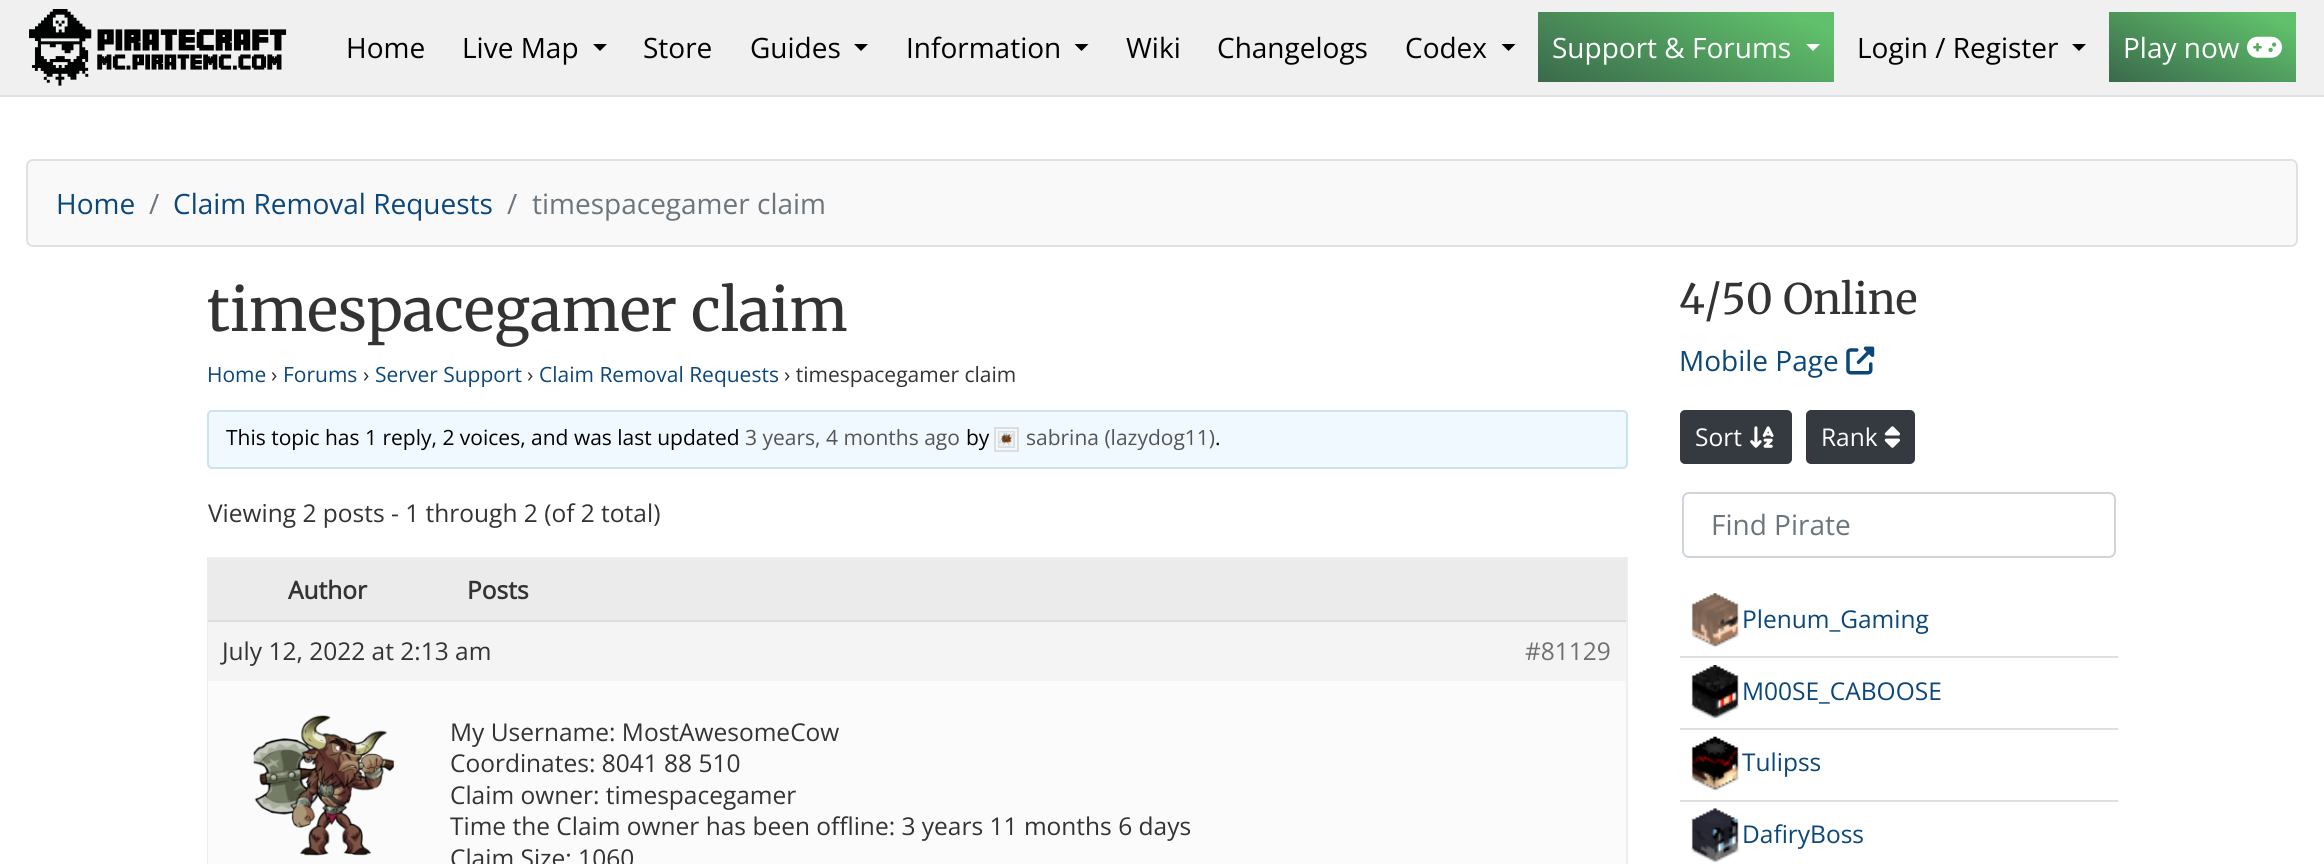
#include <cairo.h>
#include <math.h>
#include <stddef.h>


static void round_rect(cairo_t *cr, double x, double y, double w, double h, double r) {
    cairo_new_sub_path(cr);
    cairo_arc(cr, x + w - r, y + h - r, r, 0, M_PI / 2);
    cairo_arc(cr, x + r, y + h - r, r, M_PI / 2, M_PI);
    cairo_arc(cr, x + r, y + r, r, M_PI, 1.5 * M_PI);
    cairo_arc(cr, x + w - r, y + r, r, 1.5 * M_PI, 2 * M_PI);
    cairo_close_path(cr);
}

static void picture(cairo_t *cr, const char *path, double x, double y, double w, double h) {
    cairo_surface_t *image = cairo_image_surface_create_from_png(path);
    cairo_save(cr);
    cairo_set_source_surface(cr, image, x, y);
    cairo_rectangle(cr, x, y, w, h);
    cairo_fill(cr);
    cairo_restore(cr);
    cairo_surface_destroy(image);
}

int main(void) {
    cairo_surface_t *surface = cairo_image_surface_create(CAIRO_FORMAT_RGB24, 2324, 864);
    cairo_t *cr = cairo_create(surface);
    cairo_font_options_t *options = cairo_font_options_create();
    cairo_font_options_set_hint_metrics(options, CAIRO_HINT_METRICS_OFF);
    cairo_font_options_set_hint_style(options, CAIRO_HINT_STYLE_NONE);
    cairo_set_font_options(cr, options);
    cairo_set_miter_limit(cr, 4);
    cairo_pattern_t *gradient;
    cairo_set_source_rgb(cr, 1, 1, 1);
    cairo_paint(cr);
    cairo_set_source_rgb(cr, 0.941, 0.941, 0.941);
    cairo_rectangle(cr, 0, 0, 2324, 95);
    cairo_fill(cr);
    cairo_set_source_rgb(cr, 0.871, 0.886, 0.902);
    cairo_rectangle(cr, 0, 95, 2324, 2);
    cairo_fill(cr);
    picture(cr, "img1.png", 29, 9, 258, 77);
    cairo_select_font_face(cr, "Open Sans", CAIRO_FONT_SLANT_NORMAL, CAIRO_FONT_WEIGHT_NORMAL);
    cairo_set_font_size(cr, 28);
    cairo_set_source_rgb(cr, 0, 0, 0);
    cairo_move_to(cr, 346, 58);
    cairo_show_text(cr, "Home");
    cairo_move_to(cr, 462, 58);
    cairo_show_text(cr, "Live Map");
    cairo_new_path(cr);
    cairo_move_to(cr, 593, 44);
    cairo_line_to(cr, 607, 44);
    cairo_line_to(cr, 600, 51);
    cairo_close_path(cr);
    cairo_fill(cr);
    cairo_move_to(cr, 643, 58);
    cairo_show_text(cr, "Store");
    cairo_move_to(cr, 750, 58);
    cairo_show_text(cr, "Guides");
    cairo_new_path(cr);
    cairo_move_to(cr, 854, 44);
    cairo_line_to(cr, 868, 44);
    cairo_line_to(cr, 861, 51);
    cairo_close_path(cr);
    cairo_fill(cr);
    cairo_move_to(cr, 906, 58);
    cairo_show_text(cr, "Information");
    cairo_new_path(cr);
    cairo_move_to(cr, 1074.5, 44);
    cairo_line_to(cr, 1088.5, 44);
    cairo_line_to(cr, 1081.5, 51);
    cairo_close_path(cr);
    cairo_fill(cr);
    cairo_move_to(cr, 1126, 58);
    cairo_show_text(cr, "Wiki");
    cairo_move_to(cr, 1217, 58);
    cairo_show_text(cr, "Changelogs");
    cairo_move_to(cr, 1405, 58);
    cairo_show_text(cr, "Codex");
    cairo_new_path(cr);
    cairo_move_to(cr, 1501.5, 44);
    cairo_line_to(cr, 1515.5, 44);
    cairo_line_to(cr, 1508.5, 51);
    cairo_close_path(cr);
    cairo_fill(cr);
    gradient = cairo_pattern_create_linear(1646, 133, 1726, -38);
    cairo_pattern_add_color_stop_rgba(gradient, 0, 0.227, 0.412, 0.294, 1);
    cairo_pattern_add_color_stop_rgba(gradient, 0.9, 0.376, 0.753, 0.42, 1);
    cairo_set_source(cr, gradient);
    cairo_pattern_destroy(gradient);
    cairo_rectangle(cr, 1538, 12, 296, 70);
    cairo_fill(cr);
    cairo_set_source_rgb(cr, 1, 1, 1);
    cairo_move_to(cr, 1552, 58);
    cairo_show_text(cr, "Support & Forums");
    cairo_new_path(cr);
    cairo_move_to(cr, 1806, 44);
    cairo_line_to(cr, 1820, 44);
    cairo_line_to(cr, 1813, 51);
    cairo_close_path(cr);
    cairo_fill(cr);
    cairo_set_source_rgb(cr, 0, 0, 0);
    cairo_move_to(cr, 1857, 58);
    cairo_show_text(cr, "Login / Register");
    cairo_new_path(cr);
    cairo_move_to(cr, 2072, 44);
    cairo_line_to(cr, 2086, 44);
    cairo_line_to(cr, 2079, 51);
    cairo_close_path(cr);
    cairo_fill(cr);
    gradient = cairo_pattern_create_linear(2172, 112, 2233, -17);
    cairo_pattern_add_color_stop_rgba(gradient, 0, 0.227, 0.412, 0.294, 1);
    cairo_pattern_add_color_stop_rgba(gradient, 0.9, 0.376, 0.753, 0.42, 1);
    cairo_set_source(cr, gradient);
    cairo_pattern_destroy(gradient);
    cairo_rectangle(cr, 2109, 12, 187, 70);
    cairo_fill(cr);
    cairo_set_source_rgb(cr, 1, 1, 1);
    cairo_move_to(cr, 2123, 58);
    cairo_show_text(cr, "Play now");
    picture(cr, "img2.png", 2247, 36, 35, 22);
    cairo_set_source_rgb(cr, 0.973, 0.976, 0.98);
    round_rect(cr, 27, 160, 2270, 86, 6);
    cairo_fill_preserve(cr);
    cairo_set_source_rgb(cr, 0.871, 0.886, 0.902);
    cairo_stroke(cr);
    cairo_set_source_rgb(cr, 0.043, 0.278, 0.475);
    cairo_move_to(cr, 56, 214);
    cairo_show_text(cr, "Home");
    cairo_set_source_rgb(cr, 0.424, 0.459, 0.49);
    cairo_move_to(cr, 149, 214);
    cairo_show_text(cr, "/");
    cairo_set_source_rgb(cr, 0.043, 0.278, 0.475);
    cairo_move_to(cr, 173, 214);
    cairo_show_text(cr, "Claim Removal Requests");
    cairo_set_source_rgb(cr, 0.424, 0.459, 0.49);
    cairo_move_to(cr, 507, 214);
    cairo_show_text(cr, "/");
    cairo_move_to(cr, 532, 214);
    cairo_show_text(cr, "timespacegamer claim");
    cairo_select_font_face(cr, "Merriweather Light", CAIRO_FONT_SLANT_NORMAL, CAIRO_FONT_WEIGHT_NORMAL);
    cairo_set_font_size(cr, 58.75);
    cairo_set_source_rgb(cr, 0.2, 0.2, 0.2);
    cairo_move_to(cr, 207, 331);
    cairo_show_text(cr, "timespacegamer claim");
    cairo_select_font_face(cr, "Open Sans", CAIRO_FONT_SLANT_NORMAL, CAIRO_FONT_WEIGHT_NORMAL);
    cairo_set_font_size(cr, 21);
    cairo_set_source_rgb(cr, 0.043, 0.278, 0.475);
    cairo_move_to(cr, 207, 382);
    cairo_show_text(cr, "Home");
    cairo_set_source_rgb(cr, 0.2, 0.2, 0.2);
    cairo_move_to(cr, 271, 382);
    cairo_show_text(cr, "›");
    cairo_set_source_rgb(cr, 0.043, 0.278, 0.475);
    cairo_move_to(cr, 283, 382);
    cairo_show_text(cr, "Forums");
    cairo_set_source_rgb(cr, 0.2, 0.2, 0.2);
    cairo_move_to(cr, 363, 382);
    cairo_show_text(cr, "›");
    cairo_set_source_rgb(cr, 0.043, 0.278, 0.475);
    cairo_move_to(cr, 375, 382);
    cairo_show_text(cr, "Server Support");
    cairo_set_source_rgb(cr, 0.2, 0.2, 0.2);
    cairo_move_to(cr, 527, 382);
    cairo_show_text(cr, "›");
    cairo_set_source_rgb(cr, 0.043, 0.278, 0.475);
    cairo_move_to(cr, 539, 382);
    cairo_show_text(cr, "Claim Removal Requests");
    cairo_set_source_rgb(cr, 0.2, 0.2, 0.2);
    cairo_move_to(cr, 784, 382);
    cairo_show_text(cr, "› timespacegamer claim");
    cairo_set_source_rgb(cr, 0.941, 0.973, 1);
    round_rect(cr, 208, 411, 1419, 57, 4);
    cairo_fill_preserve(cr);
    cairo_set_source_rgb(cr, 0.808, 0.882, 0.937);
    cairo_stroke(cr);
    cairo_set_source_rgb(cr, 0, 0, 0);
    cairo_move_to(cr, 226, 445);
    cairo_show_text(cr, "This topic has 1 reply, 2 voices, and was last updated");
    cairo_set_source_rgb(cr, 0.333, 0.333, 0.333);
    cairo_move_to(cr, 745, 445);
    cairo_show_text(cr, "3 years, 4 months ago");
    cairo_set_source_rgb(cr, 0, 0, 0);
    cairo_move_to(cr, 966, 445);
    cairo_show_text(cr, "by");
    cairo_rectangle(cr, 995, 428, 23, 23);
    cairo_set_source_rgb(cr, 0.867, 0.867, 0.867);
    cairo_stroke(cr);
    cairo_rectangle(cr, 999, 432, 15, 15);
    cairo_stroke(cr);
    picture(cr, "img3.png", 999, 432, 15, 15);
    cairo_set_source_rgb(cr, 0.333, 0.333, 0.333);
    cairo_move_to(cr, 1026, 445);
    cairo_show_text(cr, "sabrina (lazydog11)");
    cairo_set_source_rgb(cr, 0, 0, 0);
    cairo_move_to(cr, 1215, 445);
    cairo_show_text(cr, ".");
    cairo_set_font_size(cr, 24.5);
    cairo_set_source_rgb(cr, 0.2, 0.2, 0.2);
    cairo_move_to(cr, 208, 522);
    cairo_show_text(cr, "Viewing 2 posts - 1 through 2 (of 2 total)");
    cairo_rectangle(cr, 208, 558, 1419, 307);
    cairo_set_source_rgb(cr, 0.933, 0.933, 0.933);
    cairo_stroke(cr);
    cairo_set_source_rgb(cr, 0.918, 0.918, 0.918);
    cairo_rectangle(cr, 208, 560, 1418, 60);
    cairo_fill(cr);
    cairo_set_source_rgb(cr, 0.933, 0.933, 0.933);
    cairo_rectangle(cr, 208, 559, 1418, 1);
    cairo_fill(cr);
    cairo_select_font_face(cr, "Open Sans", CAIRO_FONT_SLANT_NORMAL, CAIRO_FONT_WEIGHT_BOLD);
    cairo_set_source_rgb(cr, 0.2, 0.2, 0.2);
    cairo_move_to(cr, 288, 599);
    cairo_show_text(cr, "Author");
    cairo_move_to(cr, 467, 599);
    cairo_show_text(cr, "Posts");
    cairo_set_source_rgb(cr, 0.957, 0.957, 0.957);
    cairo_rectangle(cr, 208, 622, 1418, 59);
    cairo_fill(cr);
    cairo_set_source_rgb(cr, 0.867, 0.867, 0.867);
    cairo_rectangle(cr, 208, 620, 1418, 2);
    cairo_fill(cr);
    cairo_select_font_face(cr, "Open Sans", CAIRO_FONT_SLANT_NORMAL, CAIRO_FONT_WEIGHT_NORMAL);
    cairo_set_source_rgb(cr, 0.2, 0.2, 0.2);
    cairo_move_to(cr, 222, 660);
    cairo_show_text(cr, "July 12, 2022 at 2:13 am");
    cairo_set_source_rgb(cr, 0.439, 0.439, 0.439);
    cairo_move_to(cr, 1525, 660);
    cairo_show_text(cr, "#81129");
    cairo_set_source_rgb(cr, 0.984, 0.984, 0.984);
    cairo_rectangle(cr, 208, 681, 1418, 183);
    cairo_fill(cr);
    picture(cr, "img4.png", 253, 715, 141, 141);
    cairo_set_source_rgb(cr, 0.2, 0.2, 0.2);
    cairo_move_to(cr, 450, 741);
    cairo_show_text(cr, "My Username: MostAwesomeCow");
    cairo_move_to(cr, 450, 772);
    cairo_show_text(cr, "Coordinates: 8041 88 510");
    cairo_move_to(cr, 450, 804);
    cairo_show_text(cr, "Claim owner: timespacegamer");
    cairo_move_to(cr, 450, 835);
    cairo_show_text(cr, "Time the Claim owner has been offline: 3 years 11 months 6 days");
    cairo_move_to(cr, 450, 867);
    cairo_show_text(cr, "Claim Size: 1060");
    cairo_select_font_face(cr, "Merriweather Light", CAIRO_FONT_SLANT_NORMAL, CAIRO_FONT_WEIGHT_NORMAL);
    cairo_set_font_size(cr, 42);
    cairo_move_to(cr, 1679, 314);
    cairo_show_text(cr, "4/50 Online");
    cairo_select_font_face(cr, "Open Sans", CAIRO_FONT_SLANT_NORMAL, CAIRO_FONT_WEIGHT_NORMAL);
    cairo_set_font_size(cr, 28);
    cairo_set_source_rgb(cr, 0.043, 0.278, 0.475);
    cairo_move_to(cr, 1679, 371);
    cairo_show_text(cr, "Mobile Page");
    picture(cr, "img5.png", 1846, 346, 29, 29);
    cairo_set_source_rgb(cr, 0.204, 0.227, 0.251);
    round_rect(cr, 1681, 411, 110, 52, 4);
    cairo_fill_preserve(cr);
    cairo_stroke(cr);
    cairo_set_font_size(cr, 24.5);
    cairo_set_source_rgb(cr, 1, 1, 1);
    cairo_move_to(cr, 1695, 446);
    cairo_show_text(cr, "Sort");
    picture(cr, "img6.png", 1750, 426, 24, 22);
    cairo_set_source_rgb(cr, 0.204, 0.227, 0.251);
    round_rect(cr, 1807, 411, 107, 52, 4);
    cairo_fill_preserve(cr);
    cairo_stroke(cr);
    cairo_set_source_rgb(cr, 1, 1, 1);
    cairo_move_to(cr, 1821, 446);
    cairo_show_text(cr, "Rank");
    picture(cr, "img7.png", 1884, 426, 16, 22);
    round_rect(cr, 1683, 493, 432, 64, 6);
    cairo_set_source_rgb(cr, 0.808, 0.831, 0.855);
    cairo_stroke(cr);
    cairo_set_font_size(cr, 28);
    cairo_set_source_rgb(cr, 0.424, 0.459, 0.49);
    cairo_move_to(cr, 1711, 535);
    cairo_show_text(cr, "Find Pirate");
    cairo_set_source_rgb(cr, 0.875, 0.875, 0.875);
    cairo_rectangle(cr, 1680, 656, 438, 2);
    cairo_fill(cr);
    picture(cr, "img8.png", 1691, 593, 49, 55);
    cairo_set_font_size(cr, 24.5);
    cairo_set_source_rgb(cr, 0.043, 0.278, 0.475);
    cairo_move_to(cr, 1742, 628);
    cairo_show_text(cr, "Plenum_Gaming");
    cairo_set_source_rgb(cr, 0.875, 0.875, 0.875);
    cairo_rectangle(cr, 1680, 728, 438, 2);
    cairo_fill(cr);
    picture(cr, "img9.png", 1691, 665, 49, 54);
    cairo_set_source_rgb(cr, 0.043, 0.278, 0.475);
    cairo_move_to(cr, 1742, 700);
    cairo_show_text(cr, "M00SE_CABOOSE");
    cairo_set_source_rgb(cr, 0.875, 0.875, 0.875);
    cairo_rectangle(cr, 1680, 800, 438, 2);
    cairo_fill(cr);
    picture(cr, "img10.png", 1691, 736, 49, 55);
    cairo_set_source_rgb(cr, 0.043, 0.278, 0.475);
    cairo_move_to(cr, 1742, 771);
    cairo_show_text(cr, "Tulipss");
    picture(cr, "img11.png", 1691, 808, 49, 55);
    cairo_move_to(cr, 1742, 843);
    cairo_show_text(cr, "DafiryBoss");
    cairo_surface_write_to_png(surface, "page.png");
    cairo_font_options_destroy(options);
    cairo_destroy(cr);
    cairo_surface_destroy(surface);
    return 0;
}
